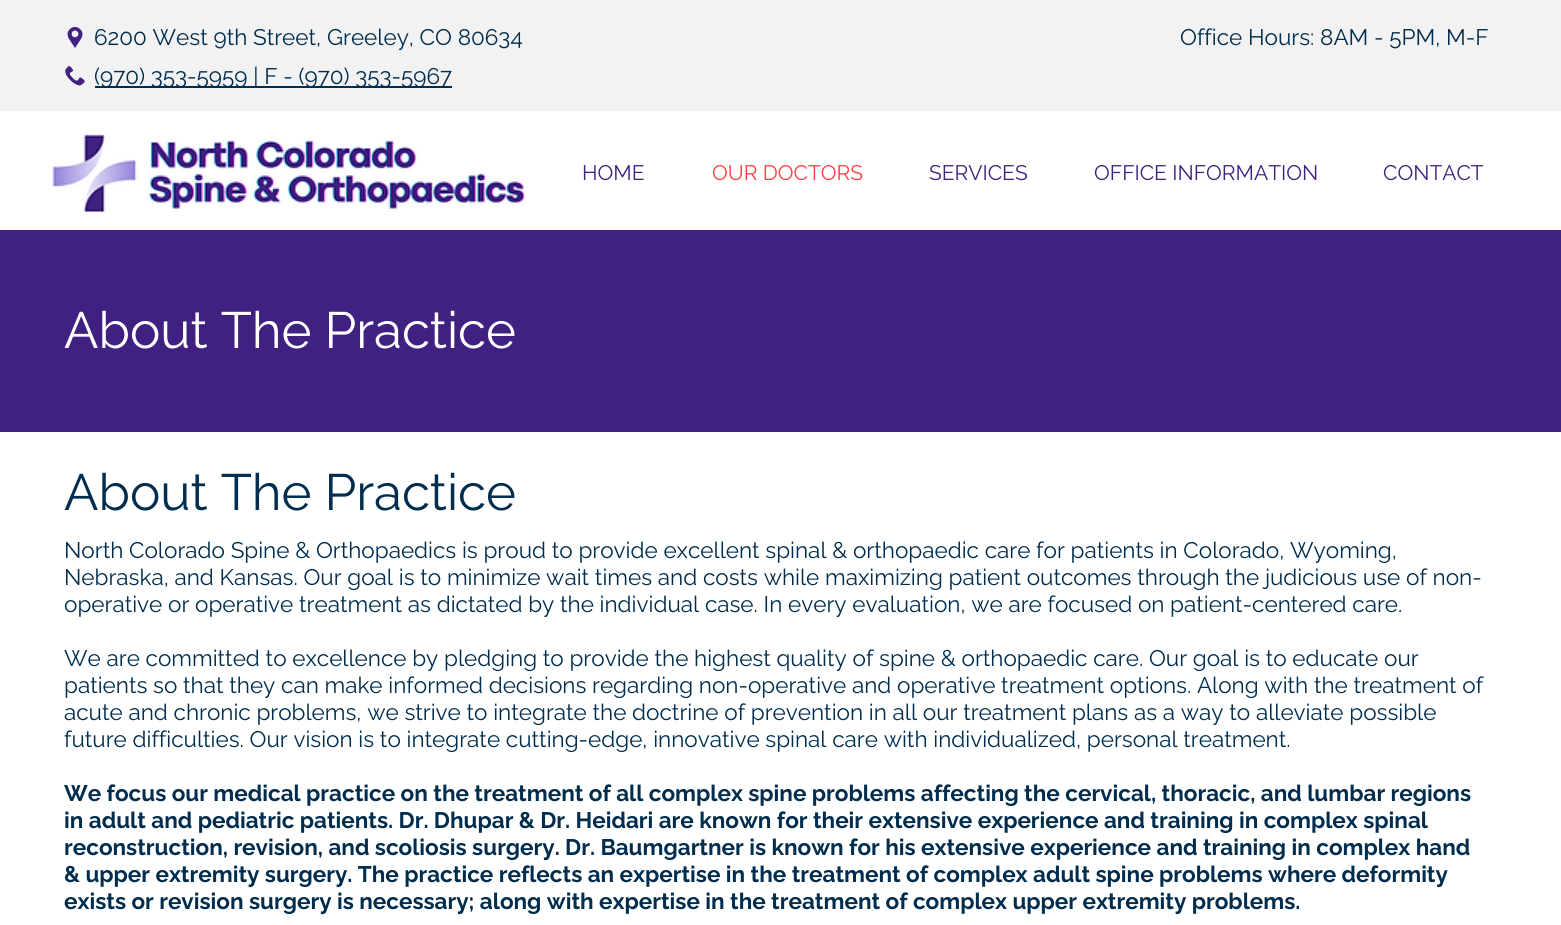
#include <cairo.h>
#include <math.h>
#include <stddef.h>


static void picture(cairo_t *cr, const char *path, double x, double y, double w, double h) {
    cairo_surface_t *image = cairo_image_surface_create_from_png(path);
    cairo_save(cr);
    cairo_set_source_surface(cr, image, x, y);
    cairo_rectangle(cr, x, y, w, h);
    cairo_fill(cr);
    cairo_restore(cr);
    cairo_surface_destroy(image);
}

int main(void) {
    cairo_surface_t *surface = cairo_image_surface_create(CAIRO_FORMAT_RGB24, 1561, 925);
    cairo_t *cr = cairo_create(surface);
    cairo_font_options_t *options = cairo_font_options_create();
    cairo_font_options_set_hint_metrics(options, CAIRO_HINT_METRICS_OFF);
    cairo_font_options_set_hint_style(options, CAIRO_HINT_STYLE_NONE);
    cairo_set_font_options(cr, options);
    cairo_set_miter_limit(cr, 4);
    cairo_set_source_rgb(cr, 1, 1, 1);
    cairo_paint(cr);
    cairo_set_source_rgb(cr, 0.949, 0.949, 0.949);
    cairo_rectangle(cr, 0, 0, 1561, 111);
    cairo_fill(cr);
    picture(cr, "img1.png", 67, 27, 16, 21);
    cairo_select_font_face(cr, "Raleway", CAIRO_FONT_SLANT_NORMAL, CAIRO_FONT_WEIGHT_NORMAL);
    cairo_set_font_size(cr, 22.5);
    cairo_set_source_rgb(cr, 0, 0.176, 0.306);
    cairo_move_to(cr, 94, 45);
    cairo_show_text(cr, "6200 West 9th Street, Greeley, CO 80634");
    cairo_move_to(cr, 1180, 45);
    cairo_show_text(cr, "Office Hours: 8AM - 5PM, M-F");
    picture(cr, "img2.png", 65, 66, 20, 20);
    cairo_rectangle(cr, 95, 86, 357, 2);
    cairo_fill(cr);
    cairo_move_to(cr, 94, 84);
    cairo_show_text(cr, "(970) 353-5959 | F - (970) 353-5967");
    picture(cr, "img3.png", 52, 134, 473, 79);
    cairo_set_font_size(cr, 21);
    cairo_set_source_rgb(cr, 0.251, 0.125, 0.502);
    cairo_move_to(cr, 582, 180);
    cairo_show_text(cr, "HOME");
    cairo_set_source_rgb(cr, 1, 0.251, 0.251);
    cairo_move_to(cr, 712, 180);
    cairo_show_text(cr, "OUR DOCTORS");
    cairo_set_source_rgb(cr, 0.251, 0.125, 0.502);
    cairo_move_to(cr, 929, 180);
    cairo_show_text(cr, "SERVICES");
    cairo_move_to(cr, 1094, 180);
    cairo_show_text(cr, "OFFICE INFORMATION");
    cairo_move_to(cr, 1383, 180);
    cairo_show_text(cr, "CONTACT");
    cairo_rectangle(cr, 0, 230, 1561, 202);
    cairo_fill(cr);
    cairo_set_font_size(cr, 51);
    cairo_set_source_rgb(cr, 1, 1, 1);
    cairo_move_to(cr, 64, 348);
    cairo_show_text(cr, "About The Practice");
    cairo_set_source_rgb(cr, 0, 0.176, 0.306);
    cairo_move_to(cr, 64, 510);
    cairo_show_text(cr, "About The Practice");
    cairo_set_font_size(cr, 22.5);
    cairo_move_to(cr, 64, 558);
    cairo_show_text(cr, "North Colorado Spine & Orthopaedics is proud to provide excellent spinal & orthopaedic care for patients in Colorado, Wyoming,");
    cairo_move_to(cr, 64, 585);
    cairo_show_text(cr, "Nebraska, and Kansas. Our goal is to minimize wait times and costs while maximizing patient outcomes through the judicious use of non-");
    cairo_move_to(cr, 64, 612);
    cairo_show_text(cr, "operative or operative treatment as dictated by the individual case. In every evaluation, we are focused on patient-centered care.");
    cairo_move_to(cr, 64, 666);
    cairo_show_text(cr, "We are committed to excellence by pledging to provide the highest quality of spine & orthopaedic care. Our goal is to educate our");
    cairo_move_to(cr, 64, 693);
    cairo_show_text(cr, "patients so that they can make informed decisions regarding non-operative and operative treatment options. Along with the treatment of");
    cairo_move_to(cr, 64, 720);
    cairo_show_text(cr, "acute and chronic problems, we strive to integrate the doctrine of prevention in all our treatment plans as a way to alleviate possible");
    cairo_move_to(cr, 64, 747);
    cairo_show_text(cr, "future difficulties. Our vision is to integrate cutting-edge, innovative spinal care with individualized, personal treatment.");
    cairo_select_font_face(cr, "Raleway", CAIRO_FONT_SLANT_NORMAL, CAIRO_FONT_WEIGHT_BOLD);
    cairo_move_to(cr, 64, 801);
    cairo_show_text(cr, "We focus our medical practice on the treatment of all complex spine problems affecting the cervical, thoracic, and lumbar regions");
    cairo_move_to(cr, 64, 828);
    cairo_show_text(cr, "in adult and pediatric patients. Dr. Dhupar & Dr. Heidari are known for their extensive experience and training in complex spinal");
    cairo_move_to(cr, 64, 855);
    cairo_show_text(cr, "reconstruction, revision, and scoliosis surgery. Dr. Baumgartner is known for his extensive experience and training in complex hand");
    cairo_move_to(cr, 64, 882);
    cairo_show_text(cr, "& upper extremity surgery. The practice reflects an expertise in the treatment of complex adult spine problems where deformity");
    cairo_move_to(cr, 64, 909);
    cairo_show_text(cr, "exists or revision surgery is necessary; along with expertise in the treatment of complex upper extremity problems.");
    cairo_surface_write_to_png(surface, "page.png");
    cairo_font_options_destroy(options);
    cairo_destroy(cr);
    cairo_surface_destroy(surface);
    return 0;
}
